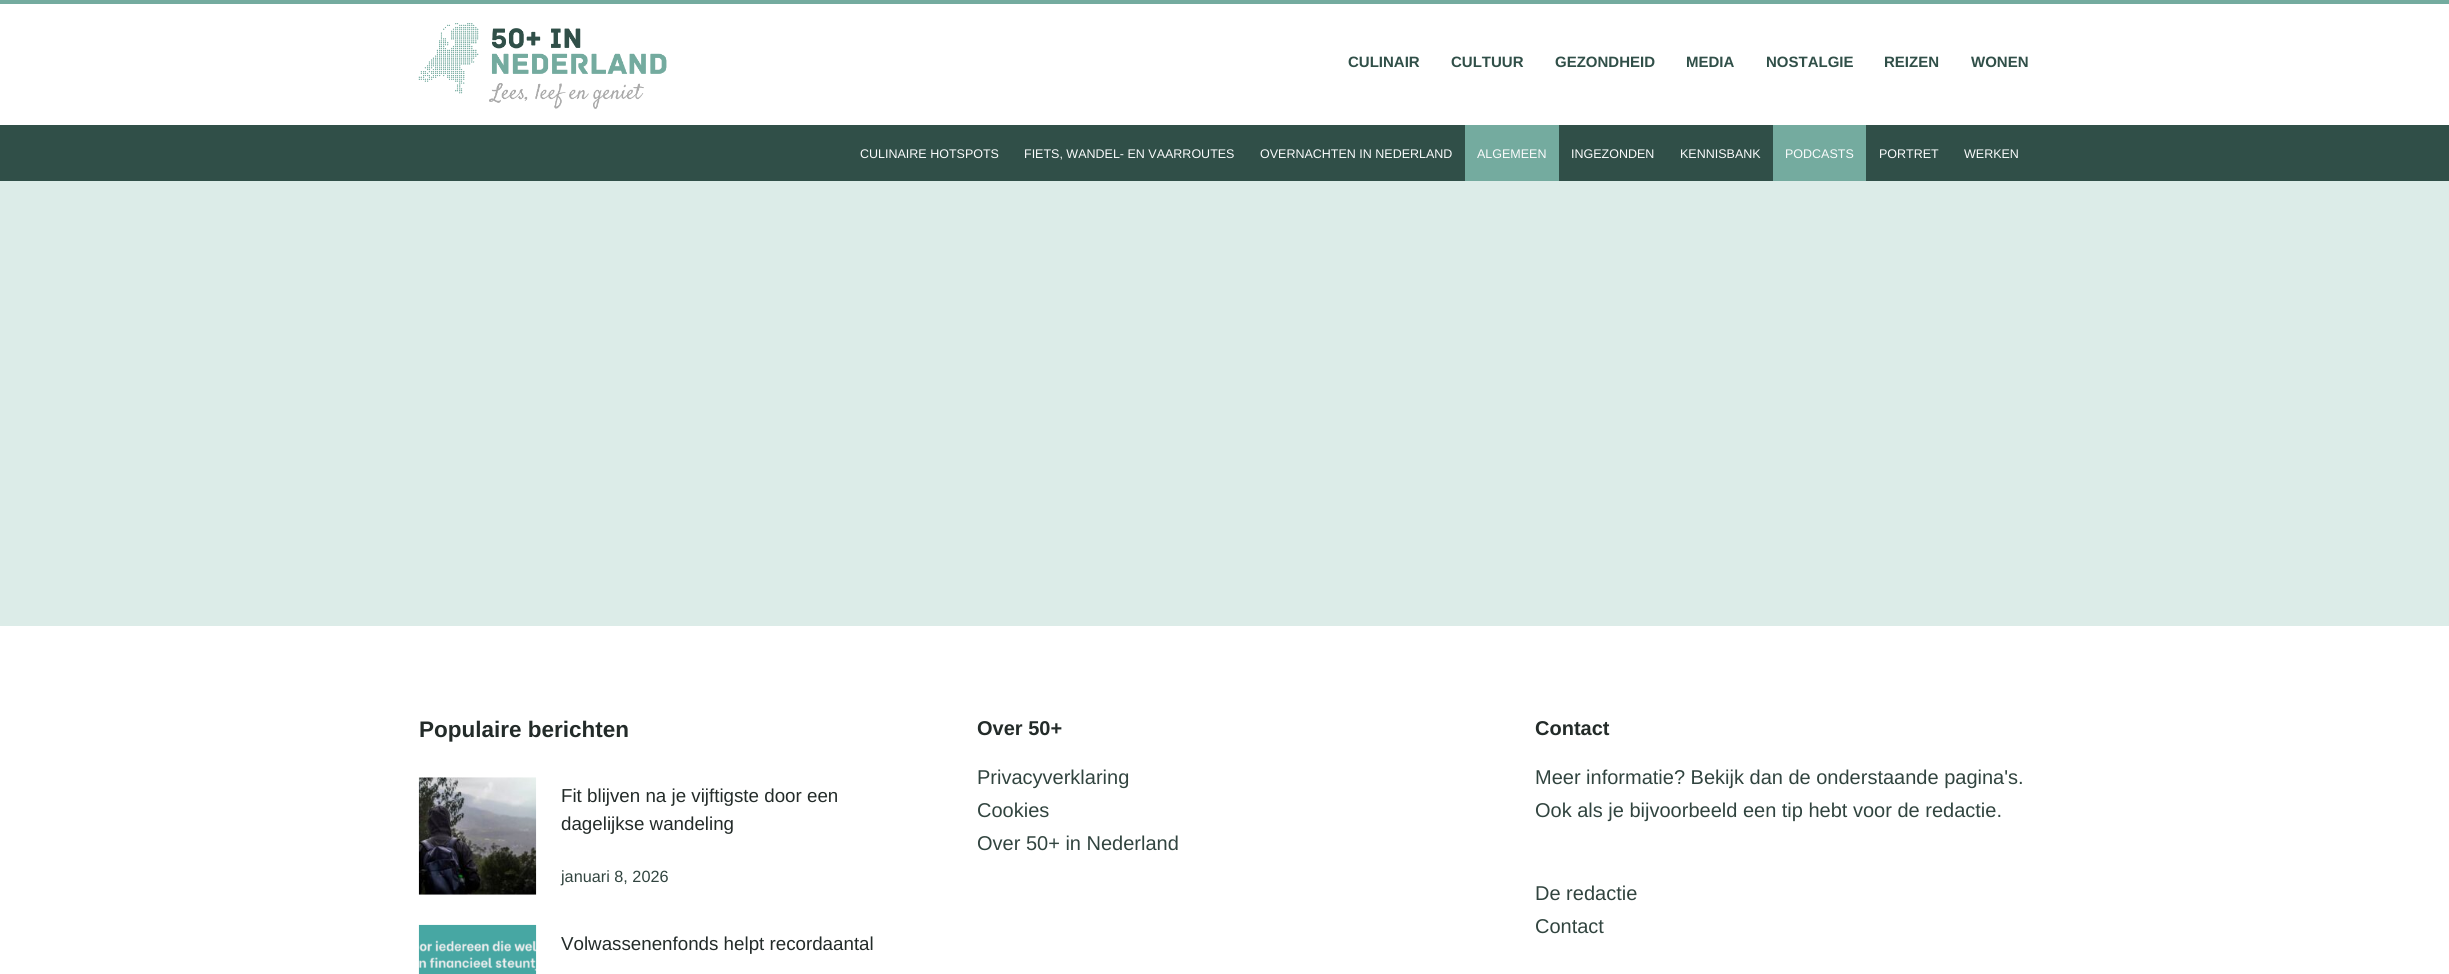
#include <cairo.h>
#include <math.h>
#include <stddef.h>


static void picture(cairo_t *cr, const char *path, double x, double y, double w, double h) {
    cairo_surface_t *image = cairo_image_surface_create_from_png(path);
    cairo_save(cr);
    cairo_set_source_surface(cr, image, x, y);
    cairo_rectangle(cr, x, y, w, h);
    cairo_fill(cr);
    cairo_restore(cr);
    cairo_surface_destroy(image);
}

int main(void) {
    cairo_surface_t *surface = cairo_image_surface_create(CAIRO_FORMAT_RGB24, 2449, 974);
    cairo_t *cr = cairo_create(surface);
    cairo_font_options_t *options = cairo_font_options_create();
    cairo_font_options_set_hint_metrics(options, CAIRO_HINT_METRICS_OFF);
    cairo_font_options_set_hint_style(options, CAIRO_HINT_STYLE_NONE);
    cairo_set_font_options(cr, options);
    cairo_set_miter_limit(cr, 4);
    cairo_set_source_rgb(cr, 0.863, 0.925, 0.91);
    cairo_paint(cr);
    cairo_set_source_rgb(cr, 0.455, 0.671, 0.624);
    cairo_rectangle(cr, 0, 0, 2449, 4);
    cairo_fill(cr);
    cairo_set_source_rgb(cr, 1, 1, 1);
    cairo_rectangle(cr, 0, 4, 2449, 121);
    cairo_fill(cr);
    picture(cr, "img1.png", 418, 23, 249, 86);
    cairo_select_font_face(cr, "Liberation Sans", CAIRO_FONT_SLANT_NORMAL, CAIRO_FONT_WEIGHT_BOLD);
    cairo_set_font_size(cr, 15);
    cairo_set_source_rgb(cr, 0.188, 0.31, 0.282);
    cairo_move_to(cr, 1348, 67);
    cairo_show_text(cr, "CULINAIR");
    cairo_move_to(cr, 1451, 67);
    cairo_show_text(cr, "CULTUUR");
    cairo_move_to(cr, 1555, 67);
    cairo_show_text(cr, "GEZONDHEID");
    cairo_move_to(cr, 1686, 67);
    cairo_show_text(cr, "MEDIA");
    cairo_move_to(cr, 1766, 67);
    cairo_show_text(cr, "NOSTALGIE");
    cairo_move_to(cr, 1884, 67);
    cairo_show_text(cr, "REIZEN");
    cairo_move_to(cr, 1971, 67);
    cairo_show_text(cr, "WONEN");
    cairo_rectangle(cr, 0, 125, 2449, 56);
    cairo_fill(cr);
    cairo_select_font_face(cr, "Liberation Sans", CAIRO_FONT_SLANT_NORMAL, CAIRO_FONT_WEIGHT_NORMAL);
    cairo_set_font_size(cr, 12.5);
    cairo_set_source_rgb(cr, 0.98, 0.984, 0.988);
    cairo_move_to(cr, 860, 158);
    cairo_show_text(cr, "CULINAIRE HOTSPOTS");
    cairo_move_to(cr, 1024, 158);
    cairo_show_text(cr, "FIETS, WANDEL- EN VAARROUTES");
    cairo_move_to(cr, 1260, 158);
    cairo_show_text(cr, "OVERNACHTEN IN NEDERLAND");
    cairo_set_source_rgb(cr, 0.455, 0.671, 0.624);
    cairo_rectangle(cr, 1465, 125, 94, 56);
    cairo_fill(cr);
    cairo_set_source_rgb(cr, 0.98, 0.984, 0.988);
    cairo_move_to(cr, 1477, 158);
    cairo_show_text(cr, "ALGEMEEN");
    cairo_move_to(cr, 1571, 158);
    cairo_show_text(cr, "INGEZONDEN");
    cairo_move_to(cr, 1680, 158);
    cairo_show_text(cr, "KENNISBANK");
    cairo_set_source_rgb(cr, 0.455, 0.671, 0.624);
    cairo_rectangle(cr, 1773, 125, 93, 56);
    cairo_fill(cr);
    cairo_set_source_rgb(cr, 0.98, 0.984, 0.988);
    cairo_move_to(cr, 1785, 158);
    cairo_show_text(cr, "PODCASTS");
    cairo_move_to(cr, 1879, 158);
    cairo_show_text(cr, "PORTRET");
    cairo_move_to(cr, 1964, 158);
    cairo_show_text(cr, "WERKEN");
    cairo_set_source_rgb(cr, 1, 1, 1);
    cairo_rectangle(cr, 0, 626, 2449, 348);
    cairo_fill(cr);
    cairo_select_font_face(cr, "Liberation Sans", CAIRO_FONT_SLANT_NORMAL, CAIRO_FONT_WEIGHT_BOLD);
    cairo_set_font_size(cr, 22.5);
    cairo_set_source_rgb(cr, 0.137, 0.169, 0.161);
    cairo_move_to(cr, 419, 737);
    cairo_show_text(cr, "Populaire berichten");
    picture(cr, "img2.png", 418, 777, 119, 118);
    cairo_select_font_face(cr, "Liberation Sans", CAIRO_FONT_SLANT_NORMAL, CAIRO_FONT_WEIGHT_NORMAL);
    cairo_set_font_size(cr, 18.75);
    cairo_move_to(cr, 561, 802);
    cairo_show_text(cr, "Fit blijven na je vijftigste door een");
    cairo_move_to(cr, 561, 830);
    cairo_show_text(cr, "dagelijkse wandeling");
    cairo_set_font_size(cr, 16.25);
    cairo_set_source_rgb(cr, 0.192, 0.267, 0.247);
    cairo_move_to(cr, 561, 882);
    cairo_show_text(cr, "januari 8, 2026");
    picture(cr, "img3.png", 418, 924, 119, 50);
    cairo_set_font_size(cr, 18.75);
    cairo_set_source_rgb(cr, 0.137, 0.169, 0.161);
    cairo_move_to(cr, 561, 950);
    cairo_show_text(cr, "Volwassenenfonds helpt recordaantal");
    cairo_select_font_face(cr, "Liberation Sans", CAIRO_FONT_SLANT_NORMAL, CAIRO_FONT_WEIGHT_BOLD);
    cairo_set_font_size(cr, 20);
    cairo_move_to(cr, 977, 735);
    cairo_show_text(cr, "Over 50+");
    cairo_select_font_face(cr, "Liberation Sans", CAIRO_FONT_SLANT_NORMAL, CAIRO_FONT_WEIGHT_NORMAL);
    cairo_set_source_rgb(cr, 0.192, 0.267, 0.247);
    cairo_move_to(cr, 977, 784);
    cairo_show_text(cr, "Privacyverklaring");
    cairo_move_to(cr, 977, 817);
    cairo_show_text(cr, "Cookies");
    cairo_move_to(cr, 977, 850);
    cairo_show_text(cr, "Over 50+ in Nederland");
    cairo_select_font_face(cr, "Liberation Sans", CAIRO_FONT_SLANT_NORMAL, CAIRO_FONT_WEIGHT_BOLD);
    cairo_set_source_rgb(cr, 0.137, 0.169, 0.161);
    cairo_move_to(cr, 1535, 735);
    cairo_show_text(cr, "Contact");
    cairo_select_font_face(cr, "Liberation Sans", CAIRO_FONT_SLANT_NORMAL, CAIRO_FONT_WEIGHT_NORMAL);
    cairo_set_source_rgb(cr, 0.192, 0.267, 0.247);
    cairo_move_to(cr, 1535, 784);
    cairo_show_text(cr, "Meer informatie? Bekijk dan de onderstaande pagina's.");
    cairo_move_to(cr, 1535, 817);
    cairo_show_text(cr, "Ook als je bijvoorbeeld een tip hebt voor de redactie.");
    cairo_move_to(cr, 1535, 900);
    cairo_show_text(cr, "De redactie");
    cairo_move_to(cr, 1535, 933);
    cairo_show_text(cr, "Contact");
    cairo_surface_write_to_png(surface, "page.png");
    cairo_font_options_destroy(options);
    cairo_destroy(cr);
    cairo_surface_destroy(surface);
    return 0;
}
